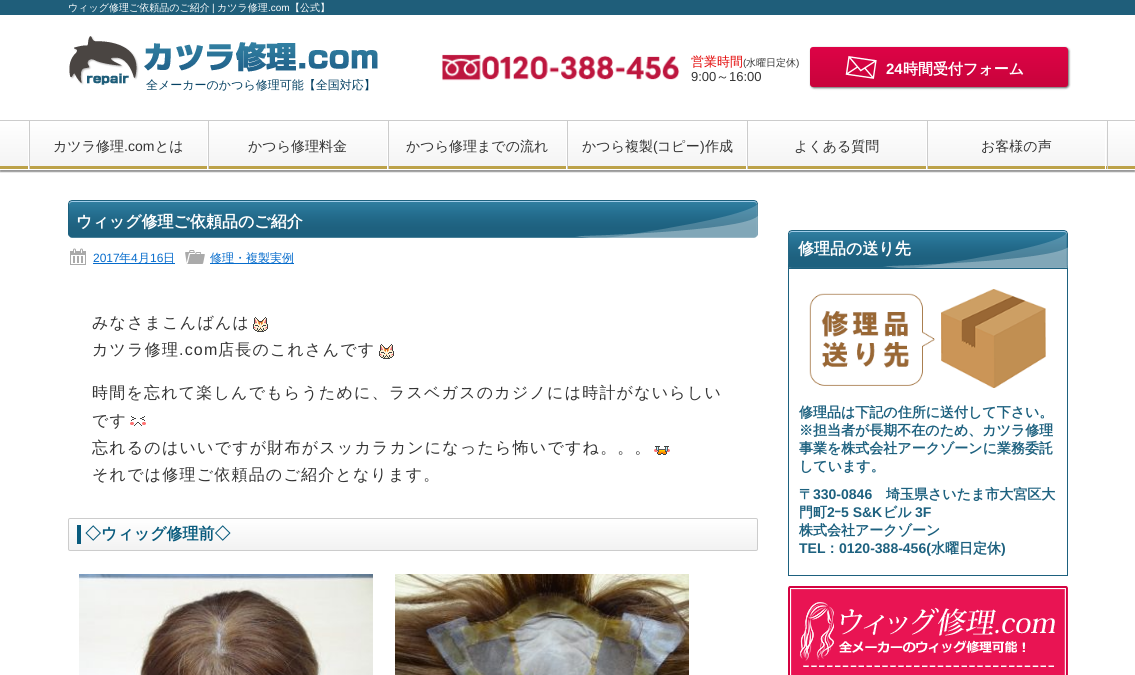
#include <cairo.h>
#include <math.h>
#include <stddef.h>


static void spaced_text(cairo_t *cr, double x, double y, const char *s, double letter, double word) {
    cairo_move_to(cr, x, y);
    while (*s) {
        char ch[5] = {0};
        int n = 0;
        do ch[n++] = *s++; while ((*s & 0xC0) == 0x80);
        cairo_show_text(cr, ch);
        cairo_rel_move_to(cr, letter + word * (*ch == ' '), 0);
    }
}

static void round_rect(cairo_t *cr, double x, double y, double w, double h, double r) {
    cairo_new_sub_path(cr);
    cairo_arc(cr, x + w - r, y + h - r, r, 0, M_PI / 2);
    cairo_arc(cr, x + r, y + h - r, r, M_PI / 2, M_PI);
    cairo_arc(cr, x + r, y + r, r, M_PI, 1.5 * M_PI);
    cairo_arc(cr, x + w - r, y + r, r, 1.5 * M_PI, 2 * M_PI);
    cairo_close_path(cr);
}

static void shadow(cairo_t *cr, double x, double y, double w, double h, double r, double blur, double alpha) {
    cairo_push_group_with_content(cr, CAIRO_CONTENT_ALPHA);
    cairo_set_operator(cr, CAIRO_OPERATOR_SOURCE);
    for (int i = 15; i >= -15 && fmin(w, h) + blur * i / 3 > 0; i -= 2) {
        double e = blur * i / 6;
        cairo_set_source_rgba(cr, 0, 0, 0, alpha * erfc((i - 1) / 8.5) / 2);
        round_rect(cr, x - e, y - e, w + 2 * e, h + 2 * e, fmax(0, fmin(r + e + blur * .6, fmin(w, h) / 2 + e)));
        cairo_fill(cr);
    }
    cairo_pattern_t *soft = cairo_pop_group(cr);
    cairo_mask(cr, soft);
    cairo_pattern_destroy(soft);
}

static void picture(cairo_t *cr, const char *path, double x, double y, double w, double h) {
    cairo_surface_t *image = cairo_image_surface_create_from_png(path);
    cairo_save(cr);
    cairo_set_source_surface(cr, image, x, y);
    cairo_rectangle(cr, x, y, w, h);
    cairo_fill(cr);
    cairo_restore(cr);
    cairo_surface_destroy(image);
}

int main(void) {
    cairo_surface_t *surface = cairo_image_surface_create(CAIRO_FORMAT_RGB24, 1135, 675);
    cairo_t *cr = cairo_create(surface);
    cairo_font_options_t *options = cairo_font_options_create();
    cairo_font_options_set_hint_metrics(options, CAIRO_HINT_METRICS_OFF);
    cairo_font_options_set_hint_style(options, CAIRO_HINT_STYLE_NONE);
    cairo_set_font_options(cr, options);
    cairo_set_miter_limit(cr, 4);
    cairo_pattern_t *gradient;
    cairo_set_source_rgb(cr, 1, 1, 1);
    cairo_paint(cr);
    cairo_set_source_rgb(cr, 0.122, 0.369, 0.478);
    cairo_rectangle(cr, 0, 0, 1135, 15);
    cairo_fill(cr);
    cairo_select_font_face(cr, "WenQuanYi Zen Hei Medium", CAIRO_FONT_SLANT_NORMAL, CAIRO_FONT_WEIGHT_NORMAL);
    cairo_set_font_size(cr, 10);
    cairo_set_source_rgb(cr, 1, 1, 1);
    cairo_move_to(cr, 68, 11);
    cairo_show_text(cr, "ウィッグ修理ご依頼品のご紹介");
    cairo_select_font_face(cr, "Liberation Sans", CAIRO_FONT_SLANT_NORMAL, CAIRO_FONT_WEIGHT_NORMAL);
    cairo_move_to(cr, 212, 11);
    cairo_show_text(cr, "|");
    cairo_select_font_face(cr, "WenQuanYi Zen Hei Medium", CAIRO_FONT_SLANT_NORMAL, CAIRO_FONT_WEIGHT_NORMAL);
    cairo_move_to(cr, 217, 11);
    cairo_show_text(cr, "カツラ修理");
    cairo_select_font_face(cr, "Liberation Sans", CAIRO_FONT_SLANT_NORMAL, CAIRO_FONT_WEIGHT_NORMAL);
    cairo_move_to(cr, 268, 11);
    cairo_show_text(cr, ".com");
    cairo_select_font_face(cr, "WenQuanYi Zen Hei Medium", CAIRO_FONT_SLANT_NORMAL, CAIRO_FONT_WEIGHT_NORMAL);
    cairo_move_to(cr, 290, 11);
    cairo_show_text(cr, "【公式】");
    picture(cr, "img1.png", 442, 54, 238, 27);
    cairo_set_font_size(cr, 13);
    cairo_set_source_rgb(cr, 0.89, 0.024, 0.024);
    cairo_move_to(cr, 691, 66);
    cairo_show_text(cr, "営業時間");
    cairo_select_font_face(cr, "Liberation Sans", CAIRO_FONT_SLANT_NORMAL, CAIRO_FONT_WEIGHT_NORMAL);
    cairo_set_font_size(cr, 10);
    cairo_set_source_rgb(cr, 0.2, 0.2, 0.2);
    cairo_move_to(cr, 743, 66);
    cairo_show_text(cr, "(");
    cairo_select_font_face(cr, "WenQuanYi Zen Hei Medium", CAIRO_FONT_SLANT_NORMAL, CAIRO_FONT_WEIGHT_NORMAL);
    cairo_move_to(cr, 746, 66);
    cairo_show_text(cr, "水曜日定休");
    cairo_select_font_face(cr, "Liberation Sans", CAIRO_FONT_SLANT_NORMAL, CAIRO_FONT_WEIGHT_NORMAL);
    cairo_move_to(cr, 796, 66);
    cairo_show_text(cr, ")");
    cairo_set_font_size(cr, 13);
    cairo_move_to(cr, 691, 81);
    cairo_show_text(cr, "9:00");
    cairo_select_font_face(cr, "WenQuanYi Zen Hei Medium", CAIRO_FONT_SLANT_NORMAL, CAIRO_FONT_WEIGHT_NORMAL);
    cairo_move_to(cr, 716, 81);
    cairo_show_text(cr, "～");
    cairo_select_font_face(cr, "Liberation Sans", CAIRO_FONT_SLANT_NORMAL, CAIRO_FONT_WEIGHT_NORMAL);
    cairo_move_to(cr, 729, 81);
    cairo_show_text(cr, "16:00");
    cairo_set_source_rgb(cr, 0, 0, 0);
    shadow(cr, 811, 48, 258, 40, 3, 1, 0.6);
    gradient = cairo_pattern_create_linear(939, 47, 939, 87);
    cairo_pattern_add_color_stop_rgba(gradient, 0, 0.867, 0.012, 0.275, 1);
    cairo_pattern_add_color_stop_rgba(gradient, 1, 0.784, 0.012, 0.231, 1);
    cairo_set_source(cr, gradient);
    cairo_pattern_destroy(gradient);
    round_rect(cr, 810, 47, 258, 40, 3);
    cairo_fill(cr);
    picture(cr, "img2.png", 845, 56, 32, 23);
    cairo_select_font_face(cr, "Liberation Sans", CAIRO_FONT_SLANT_NORMAL, CAIRO_FONT_WEIGHT_BOLD);
    cairo_set_font_size(cr, 15);
    cairo_set_source_rgb(cr, 1, 1, 1);
    cairo_move_to(cr, 886, 74);
    cairo_show_text(cr, "24");
    cairo_select_font_face(cr, "WenQuanYi Zen Hei", CAIRO_FONT_SLANT_NORMAL, CAIRO_FONT_WEIGHT_BOLD);
    cairo_move_to(cr, 903, 74);
    cairo_show_text(cr, "時間受付フォーム");
    picture(cr, "img3.png", 69, 36, 309, 49);
    cairo_select_font_face(cr, "WenQuanYi Zen Hei Medium", CAIRO_FONT_SLANT_NORMAL, CAIRO_FONT_WEIGHT_NORMAL);
    cairo_set_font_size(cr, 12);
    cairo_set_source_rgb(cr, 0.02, 0.255, 0.388);
    cairo_move_to(cr, 146, 89);
    cairo_show_text(cr, "全メーカーのかつら修理可能【全国対応】");
    cairo_set_source_rgb(cr, 0, 0, 0);
    shadow(cr, 0, 122, 1135, 50, 0, 0.5, 0.4);
    gradient = cairo_pattern_create_linear(568, 121, 568, 166);
    cairo_pattern_add_color_stop_rgba(gradient, 0, 1, 1, 1, 1);
    cairo_pattern_add_color_stop_rgba(gradient, 1, 0.957, 0.957, 0.957, 1);
    cairo_set_source(cr, gradient);
    cairo_pattern_destroy(gradient);
    cairo_rectangle(cr, 0, 121, 1135, 45);
    cairo_fill(cr);
    cairo_set_source_rgb(cr, 0.8, 0.8, 0.8);
    cairo_rectangle(cr, 0, 120, 1135, 1);
    cairo_fill(cr);
    cairo_set_source_rgb(cr, 0.737, 0.635, 0.286);
    cairo_rectangle(cr, 0, 166, 1135, 3);
    cairo_fill(cr);
    cairo_set_source_rgb(cr, 0.8, 0.8, 0.8);
    cairo_rectangle(cr, 1107, 121, 1, 48);
    cairo_fill(cr);
    cairo_set_source_rgb(cr, 1, 1, 1);
    cairo_rectangle(cr, 28, 131, 1, 38);
    cairo_fill(cr);
    cairo_rectangle(cr, 207, 131, 1, 38);
    cairo_fill(cr);
    cairo_set_source_rgb(cr, 0.8, 0.8, 0.8);
    cairo_rectangle(cr, 29, 121, 1, 48);
    cairo_fill(cr);
    cairo_set_font_size(cr, 14);
    cairo_set_source_rgb(cr, 0.2, 0.2, 0.2);
    cairo_move_to(cr, 53, 151);
    cairo_show_text(cr, "カツラ修理");
    cairo_select_font_face(cr, "Liberation Sans", CAIRO_FONT_SLANT_NORMAL, CAIRO_FONT_WEIGHT_NORMAL);
    cairo_move_to(cr, 124, 151);
    cairo_show_text(cr, ".com");
    cairo_select_font_face(cr, "WenQuanYi Zen Hei Medium", CAIRO_FONT_SLANT_NORMAL, CAIRO_FONT_WEIGHT_NORMAL);
    cairo_move_to(cr, 155, 151);
    cairo_show_text(cr, "とは");
    cairo_set_source_rgb(cr, 1, 1, 1);
    cairo_rectangle(cr, 387, 131, 1, 38);
    cairo_fill(cr);
    cairo_set_source_rgb(cr, 0.8, 0.8, 0.8);
    cairo_rectangle(cr, 208, 121, 1, 48);
    cairo_fill(cr);
    cairo_set_source_rgb(cr, 0.2, 0.2, 0.2);
    cairo_move_to(cr, 248, 151);
    cairo_show_text(cr, "かつら修理料金");
    cairo_set_source_rgb(cr, 1, 1, 1);
    cairo_rectangle(cr, 566, 131, 1, 38);
    cairo_fill(cr);
    cairo_set_source_rgb(cr, 0.8, 0.8, 0.8);
    cairo_rectangle(cr, 388, 121, 1, 48);
    cairo_fill(cr);
    cairo_set_source_rgb(cr, 0.2, 0.2, 0.2);
    cairo_move_to(cr, 406, 151);
    cairo_show_text(cr, "かつら修理までの流れ");
    cairo_set_source_rgb(cr, 1, 1, 1);
    cairo_rectangle(cr, 746, 131, 1, 38);
    cairo_fill(cr);
    cairo_set_source_rgb(cr, 0.8, 0.8, 0.8);
    cairo_rectangle(cr, 567, 121, 1, 48);
    cairo_fill(cr);
    cairo_set_source_rgb(cr, 0.2, 0.2, 0.2);
    cairo_move_to(cr, 582, 151);
    cairo_show_text(cr, "かつら複製");
    cairo_select_font_face(cr, "Liberation Sans", CAIRO_FONT_SLANT_NORMAL, CAIRO_FONT_WEIGHT_NORMAL);
    cairo_move_to(cr, 653, 151);
    cairo_show_text(cr, "(");
    cairo_select_font_face(cr, "WenQuanYi Zen Hei Medium", CAIRO_FONT_SLANT_NORMAL, CAIRO_FONT_WEIGHT_NORMAL);
    cairo_move_to(cr, 657, 151);
    cairo_show_text(cr, "コピー");
    cairo_select_font_face(cr, "Liberation Sans", CAIRO_FONT_SLANT_NORMAL, CAIRO_FONT_WEIGHT_NORMAL);
    cairo_move_to(cr, 700, 151);
    cairo_show_text(cr, ")");
    cairo_select_font_face(cr, "WenQuanYi Zen Hei Medium", CAIRO_FONT_SLANT_NORMAL, CAIRO_FONT_WEIGHT_NORMAL);
    cairo_move_to(cr, 705, 151);
    cairo_show_text(cr, "作成");
    cairo_set_source_rgb(cr, 1, 1, 1);
    cairo_rectangle(cr, 926, 131, 1, 38);
    cairo_fill(cr);
    cairo_set_source_rgb(cr, 0.8, 0.8, 0.8);
    cairo_rectangle(cr, 747, 121, 1, 48);
    cairo_fill(cr);
    cairo_set_source_rgb(cr, 0.2, 0.2, 0.2);
    cairo_move_to(cr, 794, 151);
    cairo_show_text(cr, "よくある質問");
    cairo_set_source_rgb(cr, 1, 1, 1);
    cairo_rectangle(cr, 1105, 131, 1, 38);
    cairo_fill(cr);
    cairo_set_source_rgb(cr, 0.8, 0.8, 0.8);
    cairo_rectangle(cr, 927, 121, 1, 48);
    cairo_fill(cr);
    cairo_set_source_rgb(cr, 0.2, 0.2, 0.2);
    cairo_move_to(cr, 981, 151);
    cairo_show_text(cr, "お客様の声");
    cairo_set_source_rgb(cr, 1, 1, 1);
    cairo_rectangle(cr, 0, 169, 1135, 1);
    cairo_fill(cr);
    picture(cr, "img4.png", 68, 200, 690, 38);
    cairo_select_font_face(cr, "WenQuanYi Zen Hei", CAIRO_FONT_SLANT_NORMAL, CAIRO_FONT_WEIGHT_BOLD);
    cairo_set_font_size(cr, 16);
    cairo_move_to(cr, 76, 227);
    cairo_show_text(cr, "ウィッグ修理ご依頼品のご紹介");
    picture(cr, "img5.png", 70, 248, 16, 17);
    cairo_select_font_face(cr, "Liberation Sans", CAIRO_FONT_SLANT_NORMAL, CAIRO_FONT_WEIGHT_NORMAL);
    cairo_set_font_size(cr, 12);
    cairo_set_source_rgb(cr, 0.024, 0.424, 0.8);
    cairo_move_to(cr, 93, 262);
    cairo_show_text(cr, "2017");
    cairo_rectangle(cr, 93, 263, 82, 1);
    cairo_fill(cr);
    cairo_select_font_face(cr, "WenQuanYi Zen Hei Medium", CAIRO_FONT_SLANT_NORMAL, CAIRO_FONT_WEIGHT_NORMAL);
    cairo_move_to(cr, 119, 262);
    cairo_show_text(cr, "年");
    cairo_select_font_face(cr, "Liberation Sans", CAIRO_FONT_SLANT_NORMAL, CAIRO_FONT_WEIGHT_NORMAL);
    cairo_move_to(cr, 131, 262);
    cairo_show_text(cr, "4");
    cairo_select_font_face(cr, "WenQuanYi Zen Hei Medium", CAIRO_FONT_SLANT_NORMAL, CAIRO_FONT_WEIGHT_NORMAL);
    cairo_move_to(cr, 138, 262);
    cairo_show_text(cr, "月");
    cairo_select_font_face(cr, "Liberation Sans", CAIRO_FONT_SLANT_NORMAL, CAIRO_FONT_WEIGHT_NORMAL);
    cairo_move_to(cr, 150, 262);
    cairo_show_text(cr, "16");
    cairo_select_font_face(cr, "WenQuanYi Zen Hei Medium", CAIRO_FONT_SLANT_NORMAL, CAIRO_FONT_WEIGHT_NORMAL);
    cairo_move_to(cr, 163, 262);
    cairo_show_text(cr, "日");
    picture(cr, "img6.png", 185, 250, 20, 14);
    cairo_rectangle(cr, 210, 263, 84, 1);
    cairo_fill(cr);
    cairo_move_to(cr, 210, 262);
    cairo_show_text(cr, "修理・複製実例");
    cairo_set_font_size(cr, 16);
    cairo_set_source_rgb(cr, 0.2, 0.2, 0.2);
    spaced_text(cr, 92, 328, "みなさまこんばんは", 1.2, 0);
    picture(cr, "img7.png", 253, 317, 15, 15);
    spaced_text(cr, 92, 355, "カツラ修理", 1.2, 0);
    cairo_select_font_face(cr, "Liberation Sans", CAIRO_FONT_SLANT_NORMAL, CAIRO_FONT_WEIGHT_NORMAL);
    spaced_text(cr, 179, 355, ".com", 1.2, 0);
    cairo_select_font_face(cr, "WenQuanYi Zen Hei Medium", CAIRO_FONT_SLANT_NORMAL, CAIRO_FONT_WEIGHT_NORMAL);
    spaced_text(cr, 218, 355, "店長のこれさんです", 1.2, 0);
    picture(cr, "img7.png", 379, 344, 15, 15);
    spaced_text(cr, 92, 398, "時間を忘れて楽しんでもらうために、ラスベガスのカジノには時計がないらしい", 1.2, 0);
    spaced_text(cr, 92, 426, "です", 1.2, 0);
    picture(cr, "img8.png", 130, 416, 16, 10);
    spaced_text(cr, 92, 453, "忘れるのはいいですが財布がスッカラカンになったら怖いですね。。。", 1.2, 0);
    picture(cr, "img9.png", 654, 446, 16, 9);
    spaced_text(cr, 92, 480, "それでは修理ご依頼品のご紹介となります。", 1.2, 0);
    cairo_save(cr);
    round_rect(cr, 68, 518, 690, 33, 2);
    cairo_clip(cr);
    gradient = cairo_pattern_create_linear(413, 519, 413, 550);
    cairo_pattern_add_color_stop_rgba(gradient, 0, 1, 1, 1, 1);
    cairo_pattern_add_color_stop_rgba(gradient, 1, 0.949, 0.949, 0.949, 1);
    cairo_set_source(cr, gradient);
    cairo_pattern_destroy(gradient);
    cairo_rectangle(cr, 68, 519, 690, 31);
    cairo_fill(cr);
    cairo_restore(cr);
    round_rect(cr, 68.5, 518.5, 689, 32, 1.5);
    cairo_set_source_rgb(cr, 0.8, 0.8, 0.8);
    cairo_set_line_width(cr, 1);
    cairo_stroke(cr);
    cairo_set_source_rgb(cr, 0.039, 0.357, 0.49);
    cairo_rectangle(cr, 77, 525, 4, 19);
    cairo_fill(cr);
    cairo_select_font_face(cr, "WenQuanYi Zen Hei", CAIRO_FONT_SLANT_NORMAL, CAIRO_FONT_WEIGHT_BOLD);
    cairo_move_to(cr, 85, 539);
    cairo_show_text(cr, "◇ウィッグ修理前◇");
    picture(cr, "img10.png", 79, 574, 294, 101);
    picture(cr, "img11.png", 395, 574, 294, 101);
    picture(cr, "img12.png", 788, 230, 280, 38);
    cairo_set_source_rgb(cr, 1, 1, 1);
    cairo_move_to(cr, 798, 254);
    cairo_show_text(cr, "修理品の送り先");
    cairo_rectangle(cr, 788.5, 268.5, 279, 307);
    cairo_set_source_rgb(cr, 0.114, 0.38, 0.498);
    cairo_stroke(cr);
    picture(cr, "img13.png", 809, 289, 237, 99);
    cairo_set_font_size(cr, 14);
    cairo_move_to(cr, 799, 417);
    cairo_show_text(cr, "修理品は下記の住所に送付して下さい。");
    cairo_move_to(cr, 799, 435);
    cairo_show_text(cr, "※担当者が長期不在のため、カツラ修理");
    cairo_move_to(cr, 799, 453);
    cairo_show_text(cr, "事業を株式会社アークゾーンに業務委託");
    cairo_move_to(cr, 799, 471);
    cairo_show_text(cr, "しています。");
    cairo_move_to(cr, 799, 499);
    cairo_show_text(cr, "〒");
    cairo_select_font_face(cr, "Liberation Sans", CAIRO_FONT_SLANT_NORMAL, CAIRO_FONT_WEIGHT_BOLD);
    cairo_move_to(cr, 813, 499);
    cairo_show_text(cr, "330-0846");
    cairo_select_font_face(cr, "WenQuanYi Zen Hei", CAIRO_FONT_SLANT_NORMAL, CAIRO_FONT_WEIGHT_BOLD);
    cairo_move_to(cr, 886, 499);
    cairo_show_text(cr, "埼玉県さいたま市大宮区大");
    cairo_move_to(cr, 799, 517);
    cairo_show_text(cr, "門町");
    cairo_select_font_face(cr, "Liberation Sans", CAIRO_FONT_SLANT_NORMAL, CAIRO_FONT_WEIGHT_BOLD);
    cairo_move_to(cr, 827, 517);
    cairo_show_text(cr, "2");
    cairo_select_font_face(cr, "IPAGothic", CAIRO_FONT_SLANT_NORMAL, CAIRO_FONT_WEIGHT_BOLD);
    cairo_move_to(cr, 834, 517);
    cairo_show_text(cr, "ｰ");
    cairo_select_font_face(cr, "Liberation Sans", CAIRO_FONT_SLANT_NORMAL, CAIRO_FONT_WEIGHT_BOLD);
    cairo_move_to(cr, 841, 517);
    cairo_show_text(cr, "5 S&K");
    cairo_select_font_face(cr, "WenQuanYi Zen Hei", CAIRO_FONT_SLANT_NORMAL, CAIRO_FONT_WEIGHT_BOLD);
    cairo_move_to(cr, 883, 517);
    cairo_show_text(cr, "ビル");
    cairo_select_font_face(cr, "Liberation Sans", CAIRO_FONT_SLANT_NORMAL, CAIRO_FONT_WEIGHT_BOLD);
    cairo_move_to(cr, 915, 517);
    cairo_show_text(cr, "3F");
    cairo_select_font_face(cr, "WenQuanYi Zen Hei", CAIRO_FONT_SLANT_NORMAL, CAIRO_FONT_WEIGHT_BOLD);
    cairo_move_to(cr, 799, 535);
    cairo_show_text(cr, "株式会社アークゾーン");
    cairo_select_font_face(cr, "Liberation Sans", CAIRO_FONT_SLANT_NORMAL, CAIRO_FONT_WEIGHT_BOLD);
    cairo_move_to(cr, 799, 553);
    cairo_show_text(cr, "TEL");
    cairo_select_font_face(cr, "WenQuanYi Zen Hei", CAIRO_FONT_SLANT_NORMAL, CAIRO_FONT_WEIGHT_BOLD);
    cairo_move_to(cr, 825, 553);
    cairo_show_text(cr, "：");
    cairo_select_font_face(cr, "Liberation Sans", CAIRO_FONT_SLANT_NORMAL, CAIRO_FONT_WEIGHT_BOLD);
    cairo_move_to(cr, 839, 553);
    cairo_show_text(cr, "0120-388-456(");
    cairo_select_font_face(cr, "WenQuanYi Zen Hei", CAIRO_FONT_SLANT_NORMAL, CAIRO_FONT_WEIGHT_BOLD);
    cairo_move_to(cr, 931, 553);
    cairo_show_text(cr, "水曜日定休");
    cairo_select_font_face(cr, "Liberation Sans", CAIRO_FONT_SLANT_NORMAL, CAIRO_FONT_WEIGHT_BOLD);
    cairo_move_to(cr, 1001, 553);
    cairo_show_text(cr, ")");
    picture(cr, "img14.png", 788, 586, 280, 89);
    cairo_surface_write_to_png(surface, "page.png");
    cairo_font_options_destroy(options);
    cairo_destroy(cr);
    cairo_surface_destroy(surface);
    return 0;
}
